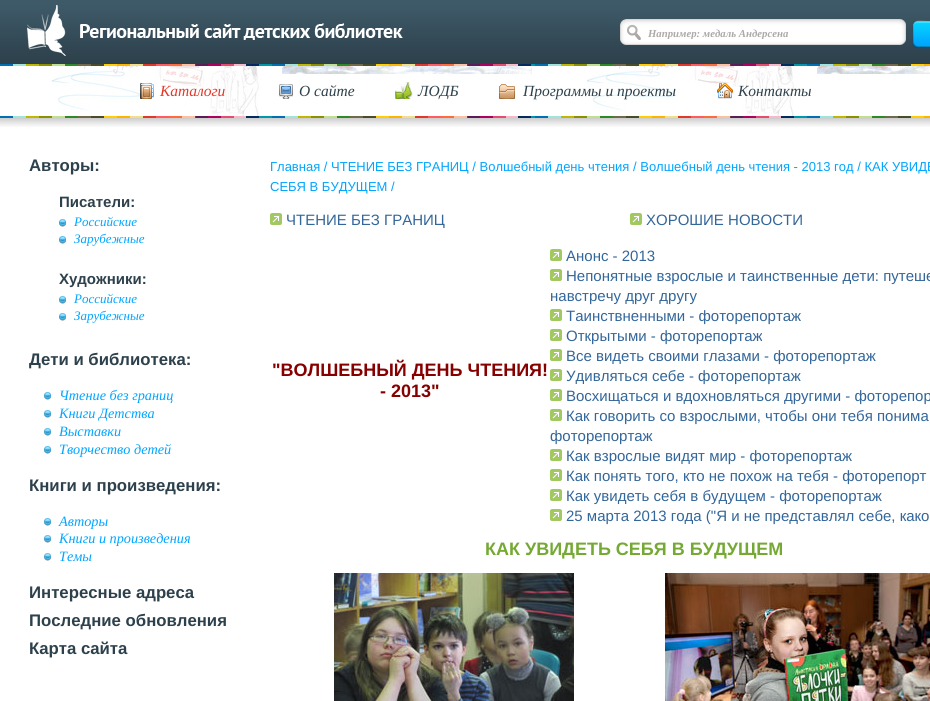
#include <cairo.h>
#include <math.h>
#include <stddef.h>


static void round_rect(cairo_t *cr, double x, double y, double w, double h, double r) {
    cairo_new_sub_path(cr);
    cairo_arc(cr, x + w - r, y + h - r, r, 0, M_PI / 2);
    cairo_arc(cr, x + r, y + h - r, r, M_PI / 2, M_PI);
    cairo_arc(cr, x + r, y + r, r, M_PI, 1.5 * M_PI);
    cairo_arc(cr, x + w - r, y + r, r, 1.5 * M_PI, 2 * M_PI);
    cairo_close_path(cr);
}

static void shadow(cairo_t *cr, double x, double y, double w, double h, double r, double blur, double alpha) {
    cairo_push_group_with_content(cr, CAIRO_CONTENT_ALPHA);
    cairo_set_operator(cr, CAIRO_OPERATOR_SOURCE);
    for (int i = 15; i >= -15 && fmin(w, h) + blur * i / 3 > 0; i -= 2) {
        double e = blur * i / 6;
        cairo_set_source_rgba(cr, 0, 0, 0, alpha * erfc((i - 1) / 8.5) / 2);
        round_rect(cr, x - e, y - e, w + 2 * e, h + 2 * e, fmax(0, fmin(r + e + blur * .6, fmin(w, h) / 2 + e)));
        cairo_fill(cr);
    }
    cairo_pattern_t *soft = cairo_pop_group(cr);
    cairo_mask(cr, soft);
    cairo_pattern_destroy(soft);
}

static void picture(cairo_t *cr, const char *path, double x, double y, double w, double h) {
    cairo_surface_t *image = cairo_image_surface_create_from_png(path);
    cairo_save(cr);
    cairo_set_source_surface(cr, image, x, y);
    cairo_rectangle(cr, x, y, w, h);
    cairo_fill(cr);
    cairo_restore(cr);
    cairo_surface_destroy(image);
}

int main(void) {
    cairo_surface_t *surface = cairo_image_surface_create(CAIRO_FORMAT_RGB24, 930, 701);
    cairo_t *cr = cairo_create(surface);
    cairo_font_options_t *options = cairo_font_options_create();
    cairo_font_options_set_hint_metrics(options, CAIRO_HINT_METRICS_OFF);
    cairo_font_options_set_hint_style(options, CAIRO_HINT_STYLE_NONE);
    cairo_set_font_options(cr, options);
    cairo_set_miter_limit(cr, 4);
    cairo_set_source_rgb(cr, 1, 1, 1);
    cairo_paint(cr);
    picture(cr, "img1.png", 0, 0, 930, 64);
    picture(cr, "img2.png", 27, 5, 376, 51);
    picture(cr, "img3.png", 620, 19, 286, 26);
    cairo_save(cr);
    cairo_rectangle(cr, 648, 27, 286, 12);
    cairo_clip(cr);
    cairo_select_font_face(cr, "Liberation Serif", CAIRO_FONT_SLANT_ITALIC, CAIRO_FONT_WEIGHT_BOLD);
    cairo_set_font_size(cr, 10.75);
    cairo_set_source_rgb(cr, 0.678, 0.663, 0.663);
    cairo_move_to(cr, 648, 37);
    cairo_show_text(cr, "Например: медаль Андерсена");
    cairo_restore(cr);
    cairo_set_source_rgb(cr, 0, 0.294, 0.522);
    shadow(cr, 913, 22, 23, 26, 4, 0.5, 0.75);
    picture(cr, "img4.png", 913, 21, 17, 26);
    cairo_set_source_rgba(cr, 1, 1, 1, 0.22);
    cairo_new_path(cr);
    cairo_move_to(cr, 917, 23);
    cairo_line_to(cr, 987, 23);
    cairo_curve_to(cr, 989, 23, 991, 25, 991, 27);
    cairo_curve_to(cr, 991, 18, 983, 21, 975, 21);
    cairo_line_to(cr, 929, 21);
    cairo_curve_to(cr, 921, 21, 913, 18, 913, 27);
    cairo_curve_to(cr, 913, 25, 915, 23, 917, 23);
    cairo_close_path(cr);
    cairo_fill(cr);
    picture(cr, "img5.png", 0, 64, 930, 63);
    picture(cr, "img6.png", 140, 83, 14, 16);
    cairo_select_font_face(cr, "Liberation Serif", CAIRO_FONT_SLANT_ITALIC, CAIRO_FONT_WEIGHT_NORMAL);
    cairo_set_font_size(cr, 15.5);
    cairo_set_source_rgb(cr, 0.89, 0.216, 0.161);
    cairo_move_to(cr, 160, 96);
    cairo_show_text(cr, "Каталоги");
    picture(cr, "img7.png", 279, 84, 14, 15);
    cairo_set_source_rgb(cr, 0.176, 0.255, 0.298);
    cairo_move_to(cr, 299, 96);
    cairo_show_text(cr, "О сайте");
    picture(cr, "img8.png", 395, 82, 18, 17);
    cairo_move_to(cr, 418, 96);
    cairo_show_text(cr, "ЛОДБ");
    picture(cr, "img9.png", 499, 84, 16, 15);
    cairo_move_to(cr, 523, 96);
    cairo_show_text(cr, "Программы и проекты");
    picture(cr, "img10.png", 717, 83, 16, 16);
    cairo_move_to(cr, 738, 96);
    cairo_show_text(cr, "Контакты");
    cairo_select_font_face(cr, "Liberation Sans", CAIRO_FONT_SLANT_NORMAL, CAIRO_FONT_WEIGHT_BOLD);
    cairo_set_font_size(cr, 16.75);
    cairo_move_to(cr, 29, 171);
    cairo_show_text(cr, "Авторы:");
    cairo_set_font_size(cr, 15);
    cairo_move_to(cr, 59, 207);
    cairo_show_text(cr, "Писатели:");
    picture(cr, "img11.png", 59, 219, 7, 8);
    cairo_select_font_face(cr, "Liberation Serif", CAIRO_FONT_SLANT_ITALIC, CAIRO_FONT_WEIGHT_NORMAL);
    cairo_set_font_size(cr, 13);
    cairo_set_source_rgb(cr, 0, 0.647, 1);
    cairo_move_to(cr, 74, 226);
    cairo_show_text(cr, "Российские");
    picture(cr, "img11.png", 59, 236, 7, 8);
    cairo_move_to(cr, 74, 243);
    cairo_show_text(cr, "Зарубежные");
    cairo_select_font_face(cr, "Liberation Sans", CAIRO_FONT_SLANT_NORMAL, CAIRO_FONT_WEIGHT_BOLD);
    cairo_set_font_size(cr, 15);
    cairo_set_source_rgb(cr, 0.176, 0.255, 0.298);
    cairo_move_to(cr, 59, 284);
    cairo_show_text(cr, "Художники:");
    picture(cr, "img11.png", 59, 296, 7, 8);
    cairo_select_font_face(cr, "Liberation Serif", CAIRO_FONT_SLANT_ITALIC, CAIRO_FONT_WEIGHT_NORMAL);
    cairo_set_font_size(cr, 13);
    cairo_set_source_rgb(cr, 0, 0.647, 1);
    cairo_move_to(cr, 74, 303);
    cairo_show_text(cr, "Российские");
    picture(cr, "img11.png", 59, 313, 7, 8);
    cairo_move_to(cr, 74, 320);
    cairo_show_text(cr, "Зарубежные");
    cairo_select_font_face(cr, "Liberation Sans", CAIRO_FONT_SLANT_NORMAL, CAIRO_FONT_WEIGHT_BOLD);
    cairo_set_font_size(cr, 16.75);
    cairo_set_source_rgb(cr, 0.176, 0.255, 0.298);
    cairo_move_to(cr, 29, 365);
    cairo_show_text(cr, "Дети и библиотека:");
    picture(cr, "img11.png", 44, 392, 7, 8);
    cairo_select_font_face(cr, "Liberation Serif", CAIRO_FONT_SLANT_ITALIC, CAIRO_FONT_WEIGHT_NORMAL);
    cairo_set_font_size(cr, 14.25);
    cairo_set_source_rgb(cr, 0, 0.647, 1);
    cairo_move_to(cr, 59, 400);
    cairo_show_text(cr, "Чтение без границ");
    picture(cr, "img11.png", 44, 410, 7, 8);
    cairo_move_to(cr, 59, 418);
    cairo_show_text(cr, "Книги Детства");
    picture(cr, "img11.png", 44, 428, 7, 8);
    cairo_move_to(cr, 59, 436);
    cairo_show_text(cr, "Выставки");
    picture(cr, "img11.png", 44, 446, 7, 8);
    cairo_move_to(cr, 59, 454);
    cairo_show_text(cr, "Творчество детей");
    cairo_select_font_face(cr, "Liberation Sans", CAIRO_FONT_SLANT_NORMAL, CAIRO_FONT_WEIGHT_BOLD);
    cairo_set_font_size(cr, 16.75);
    cairo_set_source_rgb(cr, 0.176, 0.255, 0.298);
    cairo_move_to(cr, 29, 491);
    cairo_show_text(cr, "Книги и произведения:");
    picture(cr, "img11.png", 44, 518, 7, 8);
    cairo_select_font_face(cr, "Liberation Serif", CAIRO_FONT_SLANT_ITALIC, CAIRO_FONT_WEIGHT_NORMAL);
    cairo_set_font_size(cr, 14.25);
    cairo_set_source_rgb(cr, 0, 0.647, 1);
    cairo_move_to(cr, 59, 526);
    cairo_show_text(cr, "Авторы");
    picture(cr, "img11.png", 44, 535, 7, 8);
    cairo_move_to(cr, 59, 543);
    cairo_show_text(cr, "Книги и произведения");
    picture(cr, "img11.png", 44, 553, 7, 8);
    cairo_move_to(cr, 59, 561);
    cairo_show_text(cr, "Темы");
    cairo_select_font_face(cr, "Liberation Sans", CAIRO_FONT_SLANT_NORMAL, CAIRO_FONT_WEIGHT_BOLD);
    cairo_set_font_size(cr, 16.75);
    cairo_set_source_rgb(cr, 0.176, 0.255, 0.298);
    cairo_move_to(cr, 29, 598);
    cairo_show_text(cr, "Интересные адреса");
    cairo_move_to(cr, 29, 626);
    cairo_show_text(cr, "Последние обновления");
    cairo_move_to(cr, 29, 654);
    cairo_show_text(cr, "Карта сайта");
    cairo_select_font_face(cr, "Liberation Sans", CAIRO_FONT_SLANT_NORMAL, CAIRO_FONT_WEIGHT_NORMAL);
    cairo_set_font_size(cr, 13);
    cairo_set_source_rgb(cr, 0, 0.647, 1);
    cairo_move_to(cr, 270, 171);
    cairo_show_text(cr, "Главная / ЧТЕНИЕ БЕЗ ГРАНИЦ / Волшебный день чтения / Волшебный день чтения - 2013 год / КАК УВИДЕ");
    cairo_move_to(cr, 270, 191);
    cairo_show_text(cr, "СЕБЯ В БУДУЩЕМ /");
    picture(cr, "img12.png", 270, 213, 12, 12);
    cairo_set_font_size(cr, 15);
    cairo_set_source_rgb(cr, 0.2, 0.4, 0.6);
    cairo_move_to(cr, 286, 225);
    cairo_show_text(cr, "ЧТЕНИЕ БЕЗ ГРАНИЦ");
    picture(cr, "img12.png", 630, 213, 12, 12);
    cairo_move_to(cr, 646, 225);
    cairo_show_text(cr, "ХОРОШИЕ НОВОСТИ");
    cairo_select_font_face(cr, "Liberation Sans", CAIRO_FONT_SLANT_NORMAL, CAIRO_FONT_WEIGHT_BOLD);
    cairo_set_font_size(cr, 18);
    cairo_set_source_rgb(cr, 0.529, 0, 0);
    cairo_move_to(cr, 272, 376);
    cairo_show_text(cr, "\"ВОЛШЕБНЫЙ ДЕНЬ ЧТЕНИЯ!");
    cairo_move_to(cr, 380, 397);
    cairo_show_text(cr, "- 2013\"");
    picture(cr, "img12.png", 550, 249, 12, 12);
    cairo_select_font_face(cr, "Liberation Sans", CAIRO_FONT_SLANT_NORMAL, CAIRO_FONT_WEIGHT_NORMAL);
    cairo_set_font_size(cr, 15);
    cairo_set_source_rgb(cr, 0.2, 0.4, 0.6);
    cairo_move_to(cr, 566, 261);
    cairo_show_text(cr, "Анонс - 2013");
    picture(cr, "img12.png", 550, 269, 12, 12);
    cairo_move_to(cr, 566, 281);
    cairo_show_text(cr, "Непонятные взрослые и таинственные дети: путеше");
    cairo_move_to(cr, 550, 301);
    cairo_show_text(cr, "навстречу друг другу");
    picture(cr, "img12.png", 550, 309, 12, 12);
    cairo_move_to(cr, 566, 321);
    cairo_show_text(cr, "Таинствненными - фоторепортаж");
    picture(cr, "img12.png", 550, 329, 12, 12);
    cairo_move_to(cr, 566, 341);
    cairo_show_text(cr, "Открытыми - фоторепортаж");
    picture(cr, "img12.png", 550, 349, 12, 12);
    cairo_move_to(cr, 566, 361);
    cairo_show_text(cr, "Все видеть своими глазами - фоторепортаж");
    picture(cr, "img12.png", 550, 369, 12, 12);
    cairo_move_to(cr, 566, 381);
    cairo_show_text(cr, "Удивляться себе - фоторепортаж");
    picture(cr, "img12.png", 550, 389, 12, 12);
    cairo_move_to(cr, 566, 401);
    cairo_show_text(cr, "Восхищаться и вдохновляться другими - фоторепор");
    picture(cr, "img12.png", 550, 409, 12, 12);
    cairo_move_to(cr, 566, 421);
    cairo_show_text(cr, "Как говорить со взрослыми, чтобы они тебя понима");
    cairo_move_to(cr, 550, 441);
    cairo_show_text(cr, "фоторепортаж");
    picture(cr, "img12.png", 550, 449, 12, 12);
    cairo_move_to(cr, 566, 461);
    cairo_show_text(cr, "Как взрослые видят мир - фоторепортаж");
    picture(cr, "img12.png", 550, 469, 12, 12);
    cairo_move_to(cr, 566, 481);
    cairo_show_text(cr, "Как понять того, кто не похож на тебя - фоторепорт");
    picture(cr, "img12.png", 550, 489, 12, 12);
    cairo_move_to(cr, 566, 501);
    cairo_show_text(cr, "Как увидеть себя в будущем - фоторепортаж");
    picture(cr, "img12.png", 550, 509, 12, 12);
    cairo_move_to(cr, 566, 521);
    cairo_show_text(cr, "25 марта 2013 года (\"Я и не представлял себе, како");
    cairo_select_font_face(cr, "Liberation Sans", CAIRO_FONT_SLANT_NORMAL, CAIRO_FONT_WEIGHT_BOLD);
    cairo_set_font_size(cr, 18);
    cairo_set_source_rgb(cr, 0.459, 0.663, 0.204);
    cairo_move_to(cr, 485, 555);
    cairo_show_text(cr, "КАК УВИДЕТЬ СЕБЯ В БУДУЩЕМ");
    picture(cr, "img13.png", 334, 573, 240, 128);
    picture(cr, "img14.png", 665, 573, 265, 128);
    cairo_surface_write_to_png(surface, "page.png");
    cairo_font_options_destroy(options);
    cairo_destroy(cr);
    cairo_surface_destroy(surface);
    return 0;
}
